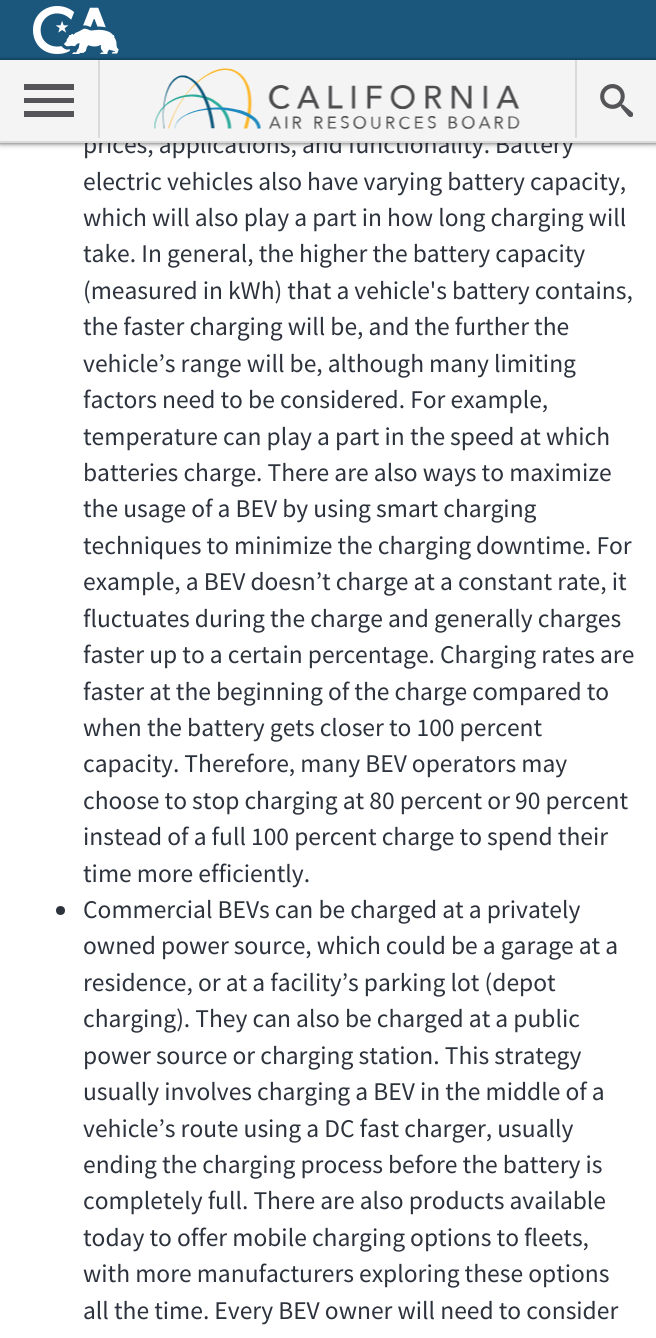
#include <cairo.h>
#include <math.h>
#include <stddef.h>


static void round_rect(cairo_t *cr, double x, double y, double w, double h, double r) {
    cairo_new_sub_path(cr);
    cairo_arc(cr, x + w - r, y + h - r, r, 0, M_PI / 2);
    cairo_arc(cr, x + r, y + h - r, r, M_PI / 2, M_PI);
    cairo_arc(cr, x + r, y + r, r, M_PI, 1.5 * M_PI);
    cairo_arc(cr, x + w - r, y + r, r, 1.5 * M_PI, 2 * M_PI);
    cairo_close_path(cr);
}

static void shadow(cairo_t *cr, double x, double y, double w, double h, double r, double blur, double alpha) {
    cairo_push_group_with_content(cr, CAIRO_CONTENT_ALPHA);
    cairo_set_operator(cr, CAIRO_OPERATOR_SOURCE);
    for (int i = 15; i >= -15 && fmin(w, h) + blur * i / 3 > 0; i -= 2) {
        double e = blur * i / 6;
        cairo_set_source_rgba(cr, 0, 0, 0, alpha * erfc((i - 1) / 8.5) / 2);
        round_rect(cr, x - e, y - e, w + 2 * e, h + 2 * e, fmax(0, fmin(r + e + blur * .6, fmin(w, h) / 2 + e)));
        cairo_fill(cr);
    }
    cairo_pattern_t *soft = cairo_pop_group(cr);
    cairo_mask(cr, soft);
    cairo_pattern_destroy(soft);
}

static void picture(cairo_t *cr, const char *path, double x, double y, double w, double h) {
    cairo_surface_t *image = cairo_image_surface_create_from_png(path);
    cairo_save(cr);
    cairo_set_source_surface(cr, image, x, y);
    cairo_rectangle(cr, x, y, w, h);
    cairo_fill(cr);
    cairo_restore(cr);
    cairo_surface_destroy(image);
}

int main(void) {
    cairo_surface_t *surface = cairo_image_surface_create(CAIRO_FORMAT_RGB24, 656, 1338);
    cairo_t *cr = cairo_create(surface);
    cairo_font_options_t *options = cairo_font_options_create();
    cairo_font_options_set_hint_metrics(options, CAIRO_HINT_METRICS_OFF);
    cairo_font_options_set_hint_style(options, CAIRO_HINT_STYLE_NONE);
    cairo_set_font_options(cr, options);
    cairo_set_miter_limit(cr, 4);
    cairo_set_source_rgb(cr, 1, 1, 1);
    cairo_paint(cr);
    cairo_set_source_rgb(cr, 0, 0, 0);
    shadow(cr, 0, 5, 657, 142, 0, 2, 0.1);
    cairo_select_font_face(cr, "Source Sans Pro", CAIRO_FONT_SLANT_NORMAL, CAIRO_FONT_WEIGHT_NORMAL);
    cairo_set_font_size(cr, 25.5);
    cairo_set_source_rgb(cr, 0.176, 0.2, 0.239);
    cairo_move_to(cr, 83, 153);
    cairo_show_text(cr, "prices, applications, and functionality. Battery");
    cairo_set_source_rgb(cr, 1, 1, 1);
    cairo_rectangle(cr, 0, 60, 656, 81);
    cairo_fill(cr);
    cairo_set_source_rgb(cr, 0.106, 0.341, 0.49);
    cairo_rectangle(cr, 0, 0, 656, 60);
    cairo_fill(cr);
    cairo_save(cr);
    cairo_set_fill_rule(cr, CAIRO_FILL_RULE_EVEN_ODD);
    cairo_new_path(cr);
    cairo_move_to(cr, 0, 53);
    cairo_line_to(cr, 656, 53);
    cairo_line_to(cr, 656, 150);
    cairo_line_to(cr, 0, 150);
    cairo_close_path(cr);
    cairo_move_to(cr, 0, 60);
    cairo_line_to(cr, 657, 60);
    cairo_line_to(cr, 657, 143);
    cairo_line_to(cr, 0, 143);
    cairo_close_path(cr);
    cairo_clip(cr);
    cairo_set_source_rgb(cr, 0, 0, 0);
    shadow(cr, -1, 59, 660, 85, 0, 1.5, 0.4);
    cairo_restore(cr);
    picture(cr, "img1.png", 33, 6, 86, 48);
    cairo_set_source_rgba(cr, 0.953, 0.953, 0.953, 0.98);
    cairo_rectangle(cr, 0, 60, 656, 81);
    cairo_fill(cr);
    cairo_set_source_rgb(cr, 0.855, 0.855, 0.855);
    cairo_rectangle(cr, 0, 141, 656, 2);
    cairo_fill(cr);
    cairo_rectangle(cr, 98, 60, 2, 78);
    cairo_fill(cr);
    cairo_set_source_rgb(cr, 0.333, 0.333, 0.349);
    cairo_new_path(cr);
    cairo_move_to(cr, 24, 117);
    cairo_line_to(cr, 74, 117);
    cairo_line_to(cr, 74, 111);
    cairo_line_to(cr, 24, 111);
    cairo_close_path(cr);
    cairo_move_to(cr, 24, 103);
    cairo_line_to(cr, 74, 103);
    cairo_line_to(cr, 74, 98);
    cairo_line_to(cr, 24, 98);
    cairo_close_path(cr);
    cairo_move_to(cr, 24, 84);
    cairo_line_to(cr, 24, 90);
    cairo_line_to(cr, 74, 90);
    cairo_line_to(cr, 74, 84);
    cairo_close_path(cr);
    cairo_fill(cr);
    picture(cr, "img2.png", 153, 68, 367, 62);
    cairo_set_source_rgb(cr, 0.855, 0.855, 0.855);
    cairo_rectangle(cr, 575, 60, 2, 78);
    cairo_fill(cr);
    picture(cr, "img3.png", 600, 84, 33, 33);
    cairo_set_source_rgb(cr, 0.176, 0.2, 0.239);
    cairo_move_to(cr, 83, 190);
    cairo_show_text(cr, "electric vehicles also have varying battery capacity,");
    cairo_move_to(cr, 83, 226);
    cairo_show_text(cr, "which will also play a part in how long charging will");
    cairo_move_to(cr, 83, 262);
    cairo_show_text(cr, "take. In general, the higher the battery capacity");
    cairo_move_to(cr, 83, 299);
    cairo_show_text(cr, "(measured in kWh) that a vehicle's battery contains,");
    cairo_move_to(cr, 83, 335);
    cairo_show_text(cr, "the faster charging will be, and the further the");
    cairo_move_to(cr, 83, 372);
    cairo_show_text(cr, "vehicle’s range will be, although many limiting");
    cairo_move_to(cr, 83, 408);
    cairo_show_text(cr, "factors need to be considered. For example,");
    cairo_move_to(cr, 83, 445);
    cairo_show_text(cr, "temperature can play a part in the speed at which");
    cairo_move_to(cr, 83, 481);
    cairo_show_text(cr, "batteries charge. There are also ways to maximize");
    cairo_move_to(cr, 83, 517);
    cairo_show_text(cr, "the usage of a BEV by using smart charging");
    cairo_move_to(cr, 83, 554);
    cairo_show_text(cr, "techniques to minimize the charging downtime. For");
    cairo_move_to(cr, 83, 590);
    cairo_show_text(cr, "example, a BEV doesn’t charge at a constant rate, it");
    cairo_move_to(cr, 83, 627);
    cairo_show_text(cr, "fluctuates during the charge and generally charges");
    cairo_move_to(cr, 83, 663);
    cairo_show_text(cr, "faster up to a certain percentage. Charging rates are");
    cairo_move_to(cr, 83, 700);
    cairo_show_text(cr, "faster at the beginning of the charge compared to");
    cairo_move_to(cr, 83, 736);
    cairo_show_text(cr, "when the battery gets closer to 100 percent");
    cairo_move_to(cr, 83, 772);
    cairo_show_text(cr, "capacity. Therefore, many BEV operators may");
    cairo_move_to(cr, 83, 809);
    cairo_show_text(cr, "choose to stop charging at 80 percent or 90 percent");
    cairo_move_to(cr, 83, 845);
    cairo_show_text(cr, "instead of a full 100 percent charge to spend their");
    cairo_move_to(cr, 83, 882);
    cairo_show_text(cr, "time more efficiently.");
    cairo_new_path(cr);
    cairo_arc(cr, 60.5, 910.5, 4.5, 0, 2 * M_PI);
    cairo_fill(cr);
    cairo_move_to(cr, 83, 918);
    cairo_show_text(cr, "Commercial BEVs can be charged at a privately");
    cairo_move_to(cr, 83, 954);
    cairo_show_text(cr, "owned power source, which could be a garage at a");
    cairo_move_to(cr, 83, 991);
    cairo_show_text(cr, "residence, or at a facility’s parking lot (depot");
    cairo_move_to(cr, 83, 1027);
    cairo_show_text(cr, "charging). They can also be charged at a public");
    cairo_move_to(cr, 83, 1064);
    cairo_show_text(cr, "power source or charging station. This strategy");
    cairo_move_to(cr, 83, 1100);
    cairo_show_text(cr, "usually involves charging a BEV in the middle of a");
    cairo_move_to(cr, 83, 1137);
    cairo_show_text(cr, "vehicle’s route using a DC fast charger, usually");
    cairo_move_to(cr, 83, 1173);
    cairo_show_text(cr, "ending the charging process before the battery is");
    cairo_move_to(cr, 83, 1209);
    cairo_show_text(cr, "completely full. There are also products available");
    cairo_move_to(cr, 83, 1246);
    cairo_show_text(cr, "today to offer mobile charging options to fleets,");
    cairo_move_to(cr, 83, 1282);
    cairo_show_text(cr, "with more manufacturers exploring these options");
    cairo_move_to(cr, 83, 1319);
    cairo_show_text(cr, "all the time. Every BEV owner will need to consider");
    cairo_surface_write_to_png(surface, "page.png");
    cairo_font_options_destroy(options);
    cairo_destroy(cr);
    cairo_surface_destroy(surface);
    return 0;
}
